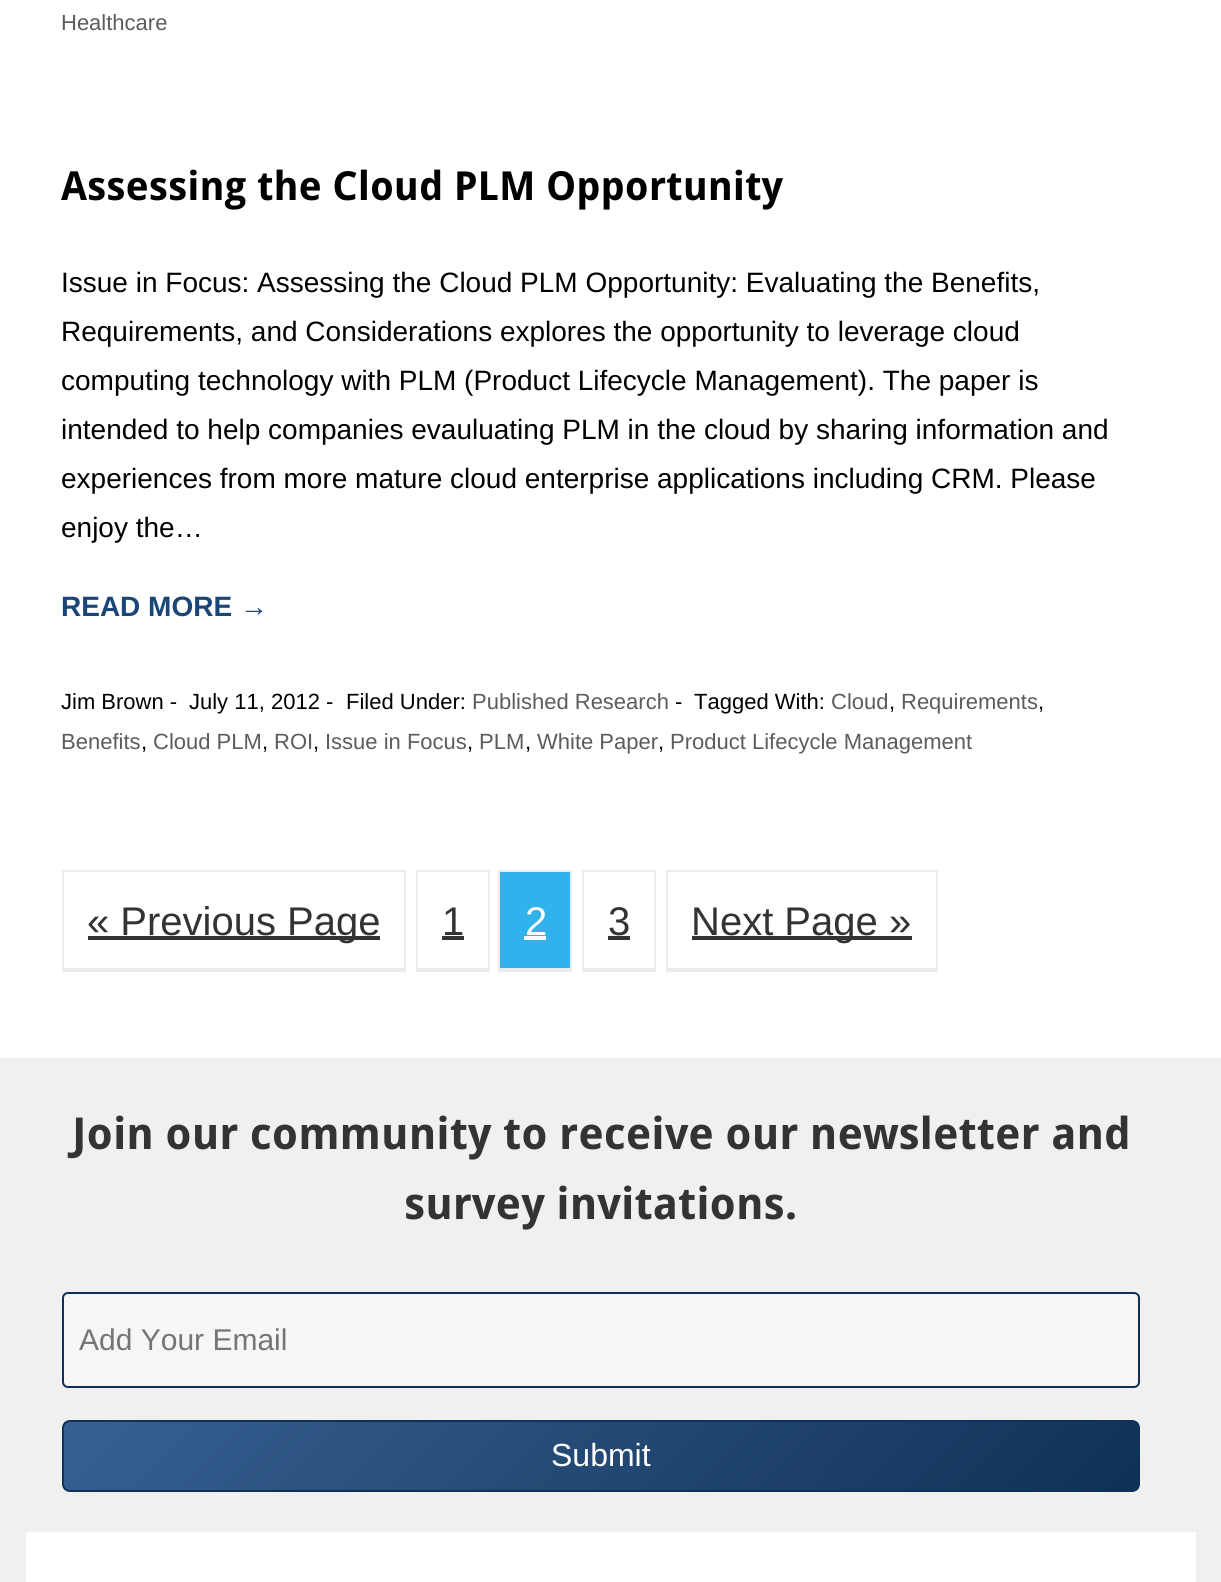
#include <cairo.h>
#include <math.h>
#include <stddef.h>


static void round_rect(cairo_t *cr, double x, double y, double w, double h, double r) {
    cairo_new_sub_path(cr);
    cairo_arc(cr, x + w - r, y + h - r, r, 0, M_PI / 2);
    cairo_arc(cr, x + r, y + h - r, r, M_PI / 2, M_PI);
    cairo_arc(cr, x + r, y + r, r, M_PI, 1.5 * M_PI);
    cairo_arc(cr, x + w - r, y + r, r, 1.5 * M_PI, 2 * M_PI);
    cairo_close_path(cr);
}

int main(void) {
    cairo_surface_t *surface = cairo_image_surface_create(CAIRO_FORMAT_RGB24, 1221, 1582);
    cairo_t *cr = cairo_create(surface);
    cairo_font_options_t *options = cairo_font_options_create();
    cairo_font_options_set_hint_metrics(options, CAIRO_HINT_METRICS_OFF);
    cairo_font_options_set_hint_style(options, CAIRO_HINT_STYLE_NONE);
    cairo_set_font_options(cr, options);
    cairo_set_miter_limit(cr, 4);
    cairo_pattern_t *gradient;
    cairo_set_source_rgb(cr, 0.941, 0.941, 0.941);
    cairo_paint(cr);
    cairo_set_source_rgb(cr, 1, 1, 1);
    cairo_rectangle(cr, 0, 0, 1221, 1058);
    cairo_fill(cr);
    cairo_select_font_face(cr, "Liberation Sans", CAIRO_FONT_SLANT_NORMAL, CAIRO_FONT_WEIGHT_NORMAL);
    cairo_set_font_size(cr, 22);
    cairo_set_source_rgb(cr, 0.361, 0.361, 0.361);
    cairo_move_to(cr, 61, 30);
    cairo_show_text(cr, "Healthcare");
    cairo_select_font_face(cr, "Droid Sans", CAIRO_FONT_SLANT_NORMAL, CAIRO_FONT_WEIGHT_BOLD);
    cairo_set_font_size(cr, 40);
    cairo_set_source_rgb(cr, 0, 0, 0);
    cairo_move_to(cr, 61, 200);
    cairo_show_text(cr, "Assessing the Cloud PLM Opportunity");
    cairo_select_font_face(cr, "Liberation Sans", CAIRO_FONT_SLANT_NORMAL, CAIRO_FONT_WEIGHT_NORMAL);
    cairo_set_font_size(cr, 28);
    cairo_move_to(cr, 61, 292);
    cairo_show_text(cr, "Issue in Focus: Assessing the Cloud PLM Opportunity: Evaluating the Benefits,");
    cairo_move_to(cr, 61, 341);
    cairo_show_text(cr, "Requirements, and Considerations explores the opportunity to leverage cloud");
    cairo_move_to(cr, 61, 390);
    cairo_show_text(cr, "computing technology with PLM (Product Lifecycle Management). The paper is");
    cairo_move_to(cr, 61, 439);
    cairo_show_text(cr, "intended to help companies evauluating PLM in the cloud by sharing information and");
    cairo_move_to(cr, 61, 488);
    cairo_show_text(cr, "experiences from more mature cloud enterprise applications including CRM. Please");
    cairo_move_to(cr, 61, 537);
    cairo_show_text(cr, "enjoy the…");
    cairo_select_font_face(cr, "Liberation Sans", CAIRO_FONT_SLANT_NORMAL, CAIRO_FONT_WEIGHT_BOLD);
    cairo_set_source_rgb(cr, 0.098, 0.271, 0.467);
    cairo_move_to(cr, 61, 616);
    cairo_show_text(cr, "READ MORE →");
    cairo_select_font_face(cr, "Liberation Sans", CAIRO_FONT_SLANT_NORMAL, CAIRO_FONT_WEIGHT_NORMAL);
    cairo_set_font_size(cr, 22);
    cairo_set_source_rgb(cr, 0, 0, 0);
    cairo_move_to(cr, 61, 709);
    cairo_show_text(cr, "Jim Brown -");
    cairo_move_to(cr, 189, 709);
    cairo_show_text(cr, "July 11, 2012 -");
    cairo_move_to(cr, 346, 709);
    cairo_show_text(cr, "Filed Under:");
    cairo_set_source_rgb(cr, 0.361, 0.361, 0.361);
    cairo_move_to(cr, 472, 709);
    cairo_show_text(cr, "Published Research");
    cairo_set_source_rgb(cr, 0, 0, 0);
    cairo_move_to(cr, 675, 709);
    cairo_show_text(cr, "-");
    cairo_move_to(cr, 694, 709);
    cairo_show_text(cr, "Tagged With:");
    cairo_set_source_rgb(cr, 0.361, 0.361, 0.361);
    cairo_move_to(cr, 831, 709);
    cairo_show_text(cr, "Cloud");
    cairo_move_to(cr, 901, 709);
    cairo_show_text(cr, "Requirements");
    cairo_set_source_rgb(cr, 0, 0, 0);
    cairo_move_to(cr, 889, 709);
    cairo_show_text(cr, ",");
    cairo_move_to(cr, 1038, 709);
    cairo_show_text(cr, ",");
    cairo_set_source_rgb(cr, 0.361, 0.361, 0.361);
    cairo_move_to(cr, 61, 749);
    cairo_show_text(cr, "Benefits");
    cairo_set_source_rgb(cr, 0, 0, 0);
    cairo_move_to(cr, 141, 749);
    cairo_show_text(cr, ",");
    cairo_set_source_rgb(cr, 0.361, 0.361, 0.361);
    cairo_move_to(cr, 153, 749);
    cairo_show_text(cr, "Cloud PLM");
    cairo_set_source_rgb(cr, 0, 0, 0);
    cairo_move_to(cr, 262, 749);
    cairo_show_text(cr, ",");
    cairo_set_source_rgb(cr, 0.361, 0.361, 0.361);
    cairo_move_to(cr, 274, 749);
    cairo_show_text(cr, "ROI");
    cairo_set_source_rgb(cr, 0, 0, 0);
    cairo_move_to(cr, 313, 749);
    cairo_show_text(cr, ",");
    cairo_set_source_rgb(cr, 0.361, 0.361, 0.361);
    cairo_move_to(cr, 325, 749);
    cairo_show_text(cr, "Issue in Focus");
    cairo_set_source_rgb(cr, 0, 0, 0);
    cairo_move_to(cr, 467, 749);
    cairo_show_text(cr, ",");
    cairo_set_source_rgb(cr, 0.361, 0.361, 0.361);
    cairo_move_to(cr, 479, 749);
    cairo_show_text(cr, "PLM");
    cairo_set_source_rgb(cr, 0, 0, 0);
    cairo_move_to(cr, 525, 749);
    cairo_show_text(cr, ",");
    cairo_set_source_rgb(cr, 0.361, 0.361, 0.361);
    cairo_move_to(cr, 537, 749);
    cairo_show_text(cr, "White Paper");
    cairo_set_source_rgb(cr, 0, 0, 0);
    cairo_move_to(cr, 658, 749);
    cairo_show_text(cr, ",");
    cairo_set_source_rgb(cr, 0.361, 0.361, 0.361);
    cairo_move_to(cr, 670, 749);
    cairo_show_text(cr, "Product Lifecycle Management");
    cairo_set_source_rgb(cr, 0.925, 0.925, 0.925);
    cairo_rectangle(cr, 62, 970, 344, 2);
    cairo_fill(cr);
    cairo_rectangle(cr, 63, 871, 342, 98);
    cairo_stroke(cr);
    cairo_set_source_rgb(cr, 0.2, 0.2, 0.2);
    cairo_rectangle(cr, 88, 936, 292, 4);
    cairo_fill(cr);
    cairo_set_font_size(cr, 40);
    cairo_move_to(cr, 87, 935);
    cairo_show_text(cr, "« Previous Page");
    cairo_set_source_rgb(cr, 0.925, 0.925, 0.925);
    cairo_rectangle(cr, 416, 970, 74, 2);
    cairo_fill(cr);
    cairo_rectangle(cr, 417, 871, 72, 98);
    cairo_stroke(cr);
    cairo_set_source_rgb(cr, 0.2, 0.2, 0.2);
    cairo_move_to(cr, 442, 935);
    cairo_show_text(cr, "1");
    cairo_rectangle(cr, 442, 936, 22, 4);
    cairo_fill(cr);
    cairo_set_source_rgb(cr, 0.925, 0.925, 0.925);
    cairo_rectangle(cr, 498, 970, 74, 2);
    cairo_fill(cr);
    cairo_set_source_rgb(cr, 0.192, 0.698, 0.929);
    cairo_rectangle(cr, 499, 871, 72, 98);
    cairo_fill_preserve(cr);
    cairo_set_source_rgb(cr, 0.925, 0.925, 0.925);
    cairo_stroke(cr);
    cairo_set_source_rgb(cr, 1, 1, 1);
    cairo_move_to(cr, 525, 935);
    cairo_show_text(cr, "2");
    cairo_rectangle(cr, 524, 936, 22, 4);
    cairo_fill(cr);
    cairo_set_source_rgb(cr, 0.925, 0.925, 0.925);
    cairo_rectangle(cr, 582, 970, 74, 2);
    cairo_fill(cr);
    cairo_rectangle(cr, 583, 871, 72, 98);
    cairo_stroke(cr);
    cairo_set_source_rgb(cr, 0.2, 0.2, 0.2);
    cairo_move_to(cr, 608, 935);
    cairo_show_text(cr, "3");
    cairo_rectangle(cr, 608, 936, 22, 4);
    cairo_fill(cr);
    cairo_set_source_rgb(cr, 0.925, 0.925, 0.925);
    cairo_rectangle(cr, 666, 970, 272, 2);
    cairo_fill(cr);
    cairo_rectangle(cr, 667, 871, 270, 98);
    cairo_stroke(cr);
    cairo_set_source_rgb(cr, 0.2, 0.2, 0.2);
    cairo_rectangle(cr, 692, 936, 220, 4);
    cairo_fill(cr);
    cairo_move_to(cr, 691, 935);
    cairo_show_text(cr, "Next Page »");
    cairo_select_font_face(cr, "Droid Sans", CAIRO_FONT_SLANT_NORMAL, CAIRO_FONT_WEIGHT_BOLD);
    cairo_set_font_size(cr, 44);
    cairo_move_to(cr, 72, 1149);
    cairo_show_text(cr, "Join our community to receive our newsletter and");
    cairo_move_to(cr, 404, 1219);
    cairo_show_text(cr, "survey invitations.");
    cairo_set_source_rgb(cr, 0.961, 0.961, 0.961);
    round_rect(cr, 63, 1293, 1076, 94, 5);
    cairo_fill_preserve(cr);
    cairo_set_source_rgb(cr, 0.059, 0.192, 0.337);
    cairo_stroke(cr);
    cairo_select_font_face(cr, "Liberation Sans", CAIRO_FONT_SLANT_NORMAL, CAIRO_FONT_WEIGHT_NORMAL);
    cairo_set_font_size(cr, 30);
    cairo_set_source_rgb(cr, 0.459, 0.459, 0.459);
    cairo_move_to(cr, 79, 1350);
    cairo_show_text(cr, "Add Your Email");
    cairo_save(cr);
    round_rect(cr, 62, 1420, 1078, 72, 8);
    cairo_clip(cr);
    gradient = cairo_pattern_create_linear(315, 1171, 887, 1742);
    cairo_pattern_add_color_stop_rgba(gradient, 0, 0.216, 0.376, 0.573, 1);
    cairo_pattern_add_color_stop_rgba(gradient, 1, 0.059, 0.192, 0.337, 1);
    cairo_set_source(cr, gradient);
    cairo_pattern_destroy(gradient);
    cairo_rectangle(cr, 64, 1422, 1074, 68);
    cairo_fill(cr);
    cairo_restore(cr);
    round_rect(cr, 63, 1421, 1076, 70, 7);
    cairo_set_source_rgb(cr, 0.059, 0.192, 0.337);
    cairo_stroke(cr);
    cairo_set_font_size(cr, 32);
    cairo_set_source_rgb(cr, 1, 1, 1);
    cairo_move_to(cr, 551, 1466);
    cairo_show_text(cr, "Submit");
    cairo_rectangle(cr, 26, 1532, 1170, 50);
    cairo_fill(cr);
    cairo_surface_write_to_png(surface, "page.png");
    cairo_font_options_destroy(options);
    cairo_destroy(cr);
    cairo_surface_destroy(surface);
    return 0;
}
